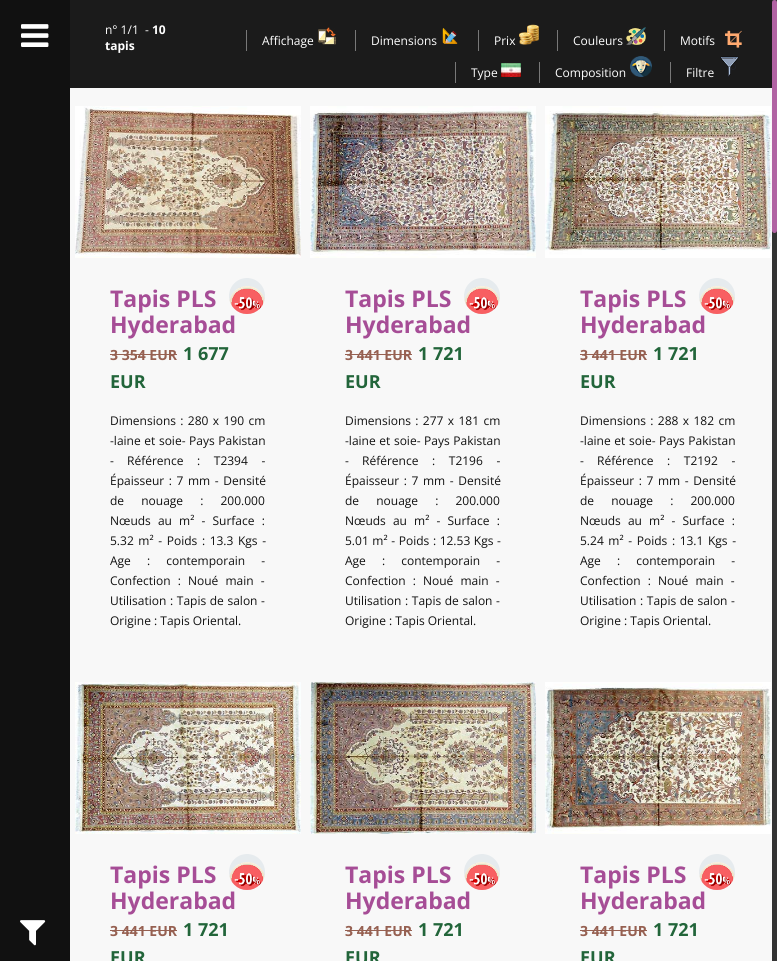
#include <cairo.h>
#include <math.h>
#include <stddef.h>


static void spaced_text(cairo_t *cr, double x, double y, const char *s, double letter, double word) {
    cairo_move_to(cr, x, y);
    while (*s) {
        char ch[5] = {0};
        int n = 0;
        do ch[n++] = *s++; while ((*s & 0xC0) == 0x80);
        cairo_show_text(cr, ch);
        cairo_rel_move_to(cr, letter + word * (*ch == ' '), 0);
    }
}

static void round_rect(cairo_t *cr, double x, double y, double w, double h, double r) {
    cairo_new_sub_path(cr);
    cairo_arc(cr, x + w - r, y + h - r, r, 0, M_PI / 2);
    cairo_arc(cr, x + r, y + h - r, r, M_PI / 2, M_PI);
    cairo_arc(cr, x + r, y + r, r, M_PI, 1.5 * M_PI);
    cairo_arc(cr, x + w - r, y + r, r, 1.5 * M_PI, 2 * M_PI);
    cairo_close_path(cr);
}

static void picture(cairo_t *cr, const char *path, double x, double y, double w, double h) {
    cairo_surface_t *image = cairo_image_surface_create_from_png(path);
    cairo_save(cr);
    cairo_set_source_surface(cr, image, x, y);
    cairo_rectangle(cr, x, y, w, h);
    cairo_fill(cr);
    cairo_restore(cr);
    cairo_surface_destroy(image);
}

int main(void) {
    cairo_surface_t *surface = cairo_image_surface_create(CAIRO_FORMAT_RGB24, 777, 961);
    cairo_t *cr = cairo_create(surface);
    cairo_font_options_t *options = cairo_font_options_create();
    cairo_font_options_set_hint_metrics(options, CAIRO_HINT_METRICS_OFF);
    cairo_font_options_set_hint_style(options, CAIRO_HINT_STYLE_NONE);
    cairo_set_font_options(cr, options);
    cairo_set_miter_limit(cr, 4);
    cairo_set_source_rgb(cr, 0.106, 0.106, 0.106);
    cairo_paint(cr);
    cairo_set_source_rgb(cr, 0.067, 0.067, 0.067);
    cairo_rectangle(cr, 0, 0, 70, 961);
    cairo_fill(cr);
    picture(cr, "img1.png", 21, 24, 28, 23);
    picture(cr, "img2.png", 20, 920, 26, 26);
    cairo_select_font_face(cr, "Open Sans", CAIRO_FONT_SLANT_NORMAL, CAIRO_FONT_WEIGHT_NORMAL);
    cairo_set_font_size(cr, 12);
    cairo_set_source_rgb(cr, 1, 1, 1);
    cairo_move_to(cr, 105, 34);
    cairo_show_text(cr, "n° 1/1  -");
    cairo_select_font_face(cr, "Open Sans", CAIRO_FONT_SLANT_NORMAL, CAIRO_FONT_WEIGHT_BOLD);
    cairo_move_to(cr, 152, 34);
    cairo_show_text(cr, "10");
    cairo_move_to(cr, 105, 50);
    cairo_show_text(cr, "tapis");
    cairo_select_font_face(cr, "Open Sans", CAIRO_FONT_SLANT_NORMAL, CAIRO_FONT_WEIGHT_NORMAL);
    cairo_move_to(cr, 262, 45);
    cairo_show_text(cr, "Affichage");
    cairo_set_source_rgb(cr, 0.471, 0.471, 0.471);
    cairo_rectangle(cr, 246, 30, 1, 21);
    cairo_fill(cr);
    picture(cr, "img3.png", 318, 27, 18, 18);
    cairo_set_source_rgb(cr, 1, 1, 1);
    cairo_move_to(cr, 371, 45);
    cairo_show_text(cr, "Dimensions");
    cairo_set_source_rgb(cr, 0.471, 0.471, 0.471);
    cairo_rectangle(cr, 355, 30, 1, 21);
    cairo_fill(cr);
    picture(cr, "img4.png", 442, 28, 16, 16);
    cairo_set_source_rgb(cr, 1, 1, 1);
    cairo_move_to(cr, 494, 45);
    cairo_show_text(cr, "Prix");
    cairo_set_source_rgb(cr, 0.471, 0.471, 0.471);
    cairo_rectangle(cr, 478, 30, 1, 21);
    cairo_fill(cr);
    picture(cr, "img5.png", 519, 24, 20, 21);
    cairo_set_source_rgb(cr, 1, 1, 1);
    cairo_move_to(cr, 573, 45);
    cairo_show_text(cr, "Couleurs");
    cairo_set_source_rgb(cr, 0.471, 0.471, 0.471);
    cairo_rectangle(cr, 557, 30, 1, 21);
    cairo_fill(cr);
    picture(cr, "img6.png", 626, 27, 20, 18);
    cairo_rectangle(cr, 664, 30, 1, 21);
    cairo_fill(cr);
    cairo_set_source_rgb(cr, 1, 1, 1);
    cairo_move_to(cr, 680, 45);
    cairo_show_text(cr, "Motifs");
    picture(cr, "img7.png", 725, 30, 17, 18);
    cairo_move_to(cr, 471, 77);
    cairo_show_text(cr, "Type");
    cairo_set_source_rgb(cr, 0.471, 0.471, 0.471);
    cairo_rectangle(cr, 455, 62, 1, 21);
    cairo_fill(cr);
    picture(cr, "img8.png", 501, 63, 20, 14);
    cairo_set_source_rgb(cr, 1, 1, 1);
    cairo_move_to(cr, 555, 77);
    cairo_show_text(cr, "Composition");
    cairo_set_source_rgb(cr, 0.471, 0.471, 0.471);
    cairo_rectangle(cr, 539, 62, 1, 21);
    cairo_fill(cr);
    picture(cr, "img9.png", 630, 56, 22, 21);
    cairo_set_source_rgb(cr, 1, 1, 1);
    cairo_move_to(cr, 686, 77);
    cairo_show_text(cr, "Filtre");
    cairo_set_source_rgb(cr, 0.471, 0.471, 0.471);
    cairo_rectangle(cr, 670, 62, 1, 21);
    cairo_fill(cr);
    picture(cr, "img10.png", 720, 56, 19, 21);
    cairo_set_source_rgb(cr, 0.969, 0.969, 0.969);
    cairo_rectangle(cr, 70, 88, 702, 576);
    cairo_fill(cr);
    picture(cr, "img11.png", 75, 106, 226, 152);
    cairo_select_font_face(cr, "Open Sans", CAIRO_FONT_SLANT_NORMAL, CAIRO_FONT_WEIGHT_BOLD);
    cairo_set_font_size(cr, 23);
    cairo_set_source_rgb(cr, 0.651, 0.302, 0.588);
    cairo_move_to(cr, 110, 307);
    cairo_show_text(cr, "Tapis PLS");
    cairo_move_to(cr, 110, 333);
    cairo_show_text(cr, "Hyderabad");
    cairo_set_font_size(cr, 14);
    cairo_set_source_rgb(cr, 0.588, 0.376, 0.318);
    cairo_move_to(cr, 110, 360);
    cairo_show_text(cr, "3 354 EUR");
    cairo_rectangle(cr, 110, 354, 67, 1);
    cairo_fill(cr);
    cairo_set_font_size(cr, 18);
    cairo_set_source_rgb(cr, 0.133, 0.396, 0.227);
    cairo_move_to(cr, 183, 360);
    cairo_show_text(cr, "1 677");
    cairo_move_to(cr, 110, 388);
    cairo_show_text(cr, "EUR");
    cairo_set_source_rgb(cr, 0.902, 0.918, 0.933);
    cairo_new_path(cr);
    cairo_arc(cr, 247, 296, 18, 0, 2 * M_PI);
    cairo_fill(cr);
    picture(cr, "img12.png", 229, 286, 36, 28);
    cairo_select_font_face(cr, "Open Sans", CAIRO_FONT_SLANT_NORMAL, CAIRO_FONT_WEIGHT_NORMAL);
    cairo_set_font_size(cr, 12);
    cairo_set_source_rgb(cr, 0.067, 0.067, 0.067);
    spaced_text(cr, 110, 425, "Dimensions : 280 x 190 cm", 0, 1.25);
    spaced_text(cr, 110, 445, "-laine et soie- Pays Pakistan", 0, 0.5);
    cairo_move_to(cr, 110, 465);
    cairo_show_text(cr, "-");
    spaced_text(cr, 127, 465, "Référence : T2394 -", 0, 10.5);
    spaced_text(cr, 110, 485, "Épaisseur : 7 mm - Densité", 0, 1.5);
    spaced_text(cr, 110, 505, "de nouage : 200.000", 0, 14);
    spaced_text(cr, 110, 525, "Nœuds au m² - Surface :", 0, 4);
    spaced_text(cr, 110, 545, "5.32 m² - Poids : 13.3 Kgs -", 0, 1.5);
    spaced_text(cr, 110, 565, "Age : contemporain -", 0, 13);
    spaced_text(cr, 110, 585, "Confection : Noué main -", 0, 4);
    spaced_text(cr, 110, 605, "Utilisation : Tapis de salon -", 0, 0.5);
    cairo_move_to(cr, 110, 625);
    cairo_show_text(cr, "Origine : Tapis Oriental.");
    picture(cr, "img13.png", 310, 106, 226, 152);
    cairo_select_font_face(cr, "Open Sans", CAIRO_FONT_SLANT_NORMAL, CAIRO_FONT_WEIGHT_BOLD);
    cairo_set_font_size(cr, 23);
    cairo_set_source_rgb(cr, 0.651, 0.302, 0.588);
    cairo_move_to(cr, 345, 307);
    cairo_show_text(cr, "Tapis PLS");
    cairo_move_to(cr, 345, 333);
    cairo_show_text(cr, "Hyderabad");
    cairo_set_font_size(cr, 14);
    cairo_set_source_rgb(cr, 0.588, 0.376, 0.318);
    cairo_move_to(cr, 345, 360);
    cairo_show_text(cr, "3 441 EUR");
    cairo_rectangle(cr, 345, 354, 67, 1);
    cairo_fill(cr);
    cairo_set_font_size(cr, 18);
    cairo_set_source_rgb(cr, 0.133, 0.396, 0.227);
    cairo_move_to(cr, 418, 360);
    cairo_show_text(cr, "1 721");
    cairo_move_to(cr, 345, 388);
    cairo_show_text(cr, "EUR");
    cairo_set_source_rgb(cr, 0.902, 0.918, 0.933);
    cairo_new_path(cr);
    cairo_arc(cr, 482, 296, 18, 0, 2 * M_PI);
    cairo_fill(cr);
    picture(cr, "img14.png", 464, 286, 36, 28);
    cairo_select_font_face(cr, "Open Sans", CAIRO_FONT_SLANT_NORMAL, CAIRO_FONT_WEIGHT_NORMAL);
    cairo_set_font_size(cr, 12);
    cairo_set_source_rgb(cr, 0.067, 0.067, 0.067);
    spaced_text(cr, 345, 425, "Dimensions : 277 x 181 cm", 0, 1.25);
    spaced_text(cr, 345, 445, "-laine et soie- Pays Pakistan", 0, 0.5);
    cairo_move_to(cr, 345, 465);
    cairo_show_text(cr, "-");
    spaced_text(cr, 362, 465, "Référence : T2196 -", 0, 10.5);
    spaced_text(cr, 345, 485, "Épaisseur : 7 mm - Densité", 0, 1.5);
    spaced_text(cr, 345, 505, "de nouage : 200.000", 0, 14);
    spaced_text(cr, 345, 525, "Nœuds au m² - Surface :", 0, 4);
    spaced_text(cr, 345, 545, "5.01 m² - Poids : 12.53 Kgs -", 0, 0.5);
    spaced_text(cr, 345, 565, "Age : contemporain -", 0, 13);
    spaced_text(cr, 345, 585, "Confection : Noué main -", 0, 4);
    spaced_text(cr, 345, 605, "Utilisation : Tapis de salon -", 0, 0.5);
    cairo_move_to(cr, 345, 625);
    cairo_show_text(cr, "Origine : Tapis Oriental.");
    picture(cr, "img15.png", 545, 106, 226, 152);
    cairo_select_font_face(cr, "Open Sans", CAIRO_FONT_SLANT_NORMAL, CAIRO_FONT_WEIGHT_BOLD);
    cairo_set_font_size(cr, 23);
    cairo_set_source_rgb(cr, 0.651, 0.302, 0.588);
    cairo_move_to(cr, 580, 307);
    cairo_show_text(cr, "Tapis PLS");
    cairo_move_to(cr, 580, 333);
    cairo_show_text(cr, "Hyderabad");
    cairo_set_font_size(cr, 14);
    cairo_set_source_rgb(cr, 0.588, 0.376, 0.318);
    cairo_move_to(cr, 580, 360);
    cairo_show_text(cr, "3 441 EUR");
    cairo_rectangle(cr, 580, 354, 67, 1);
    cairo_fill(cr);
    cairo_set_font_size(cr, 18);
    cairo_set_source_rgb(cr, 0.133, 0.396, 0.227);
    cairo_move_to(cr, 653, 360);
    cairo_show_text(cr, "1 721");
    cairo_move_to(cr, 580, 388);
    cairo_show_text(cr, "EUR");
    cairo_set_source_rgb(cr, 0.902, 0.918, 0.933);
    cairo_new_path(cr);
    cairo_arc(cr, 717, 296, 18, 0, 2 * M_PI);
    cairo_fill(cr);
    picture(cr, "img16.png", 699, 286, 36, 28);
    cairo_select_font_face(cr, "Open Sans", CAIRO_FONT_SLANT_NORMAL, CAIRO_FONT_WEIGHT_NORMAL);
    cairo_set_font_size(cr, 12);
    cairo_set_source_rgb(cr, 0.067, 0.067, 0.067);
    spaced_text(cr, 580, 425, "Dimensions : 288 x 182 cm", 0, 1.25);
    spaced_text(cr, 580, 445, "-laine et soie- Pays Pakistan", 0, 0.5);
    cairo_move_to(cr, 580, 465);
    cairo_show_text(cr, "-");
    spaced_text(cr, 597, 465, "Référence : T2192 -", 0, 10.5);
    spaced_text(cr, 580, 485, "Épaisseur : 7 mm - Densité", 0, 1.5);
    spaced_text(cr, 580, 505, "de nouage : 200.000", 0, 14);
    spaced_text(cr, 580, 525, "Nœuds au m² - Surface :", 0, 4);
    spaced_text(cr, 580, 545, "5.24 m² - Poids : 13.1 Kgs -", 0, 1.5);
    spaced_text(cr, 580, 565, "Age : contemporain -", 0, 13);
    spaced_text(cr, 580, 585, "Confection : Noué main -", 0, 4);
    spaced_text(cr, 580, 605, "Utilisation : Tapis de salon -", 0, 0.5);
    cairo_move_to(cr, 580, 625);
    cairo_show_text(cr, "Origine : Tapis Oriental.");
    cairo_set_source_rgb(cr, 0.969, 0.969, 0.969);
    cairo_rectangle(cr, 70, 664, 702, 297);
    cairo_fill(cr);
    picture(cr, "img17.png", 75, 682, 226, 152);
    cairo_select_font_face(cr, "Open Sans", CAIRO_FONT_SLANT_NORMAL, CAIRO_FONT_WEIGHT_BOLD);
    cairo_set_font_size(cr, 23);
    cairo_set_source_rgb(cr, 0.651, 0.302, 0.588);
    cairo_move_to(cr, 110, 883);
    cairo_show_text(cr, "Tapis PLS");
    cairo_move_to(cr, 110, 909);
    cairo_show_text(cr, "Hyderabad");
    cairo_set_font_size(cr, 14);
    cairo_set_source_rgb(cr, 0.588, 0.376, 0.318);
    cairo_move_to(cr, 110, 936);
    cairo_show_text(cr, "3 441 EUR");
    cairo_rectangle(cr, 110, 930, 67, 1);
    cairo_fill(cr);
    cairo_set_font_size(cr, 18);
    cairo_set_source_rgb(cr, 0.133, 0.396, 0.227);
    cairo_move_to(cr, 183, 936);
    cairo_show_text(cr, "1 721");
    cairo_move_to(cr, 110, 964);
    cairo_show_text(cr, "EUR");
    cairo_set_source_rgb(cr, 0.902, 0.918, 0.933);
    cairo_new_path(cr);
    cairo_arc(cr, 247, 872, 18, 0, 2 * M_PI);
    cairo_fill(cr);
    picture(cr, "img12.png", 229, 862, 36, 28);
    picture(cr, "img18.png", 310, 682, 226, 152);
    cairo_set_font_size(cr, 23);
    cairo_set_source_rgb(cr, 0.651, 0.302, 0.588);
    cairo_move_to(cr, 345, 883);
    cairo_show_text(cr, "Tapis PLS");
    cairo_move_to(cr, 345, 909);
    cairo_show_text(cr, "Hyderabad");
    cairo_set_font_size(cr, 14);
    cairo_set_source_rgb(cr, 0.588, 0.376, 0.318);
    cairo_move_to(cr, 345, 936);
    cairo_show_text(cr, "3 441 EUR");
    cairo_rectangle(cr, 345, 930, 67, 1);
    cairo_fill(cr);
    cairo_set_font_size(cr, 18);
    cairo_set_source_rgb(cr, 0.133, 0.396, 0.227);
    cairo_move_to(cr, 418, 936);
    cairo_show_text(cr, "1 721");
    cairo_move_to(cr, 345, 964);
    cairo_show_text(cr, "EUR");
    cairo_set_source_rgb(cr, 0.902, 0.918, 0.933);
    cairo_new_path(cr);
    cairo_arc(cr, 482, 872, 18, 0, 2 * M_PI);
    cairo_fill(cr);
    picture(cr, "img14.png", 464, 862, 36, 28);
    picture(cr, "img19.png", 545, 682, 226, 152);
    cairo_set_font_size(cr, 23);
    cairo_set_source_rgb(cr, 0.651, 0.302, 0.588);
    cairo_move_to(cr, 580, 883);
    cairo_show_text(cr, "Tapis PLS");
    cairo_move_to(cr, 580, 909);
    cairo_show_text(cr, "Hyderabad");
    cairo_set_font_size(cr, 14);
    cairo_set_source_rgb(cr, 0.588, 0.376, 0.318);
    cairo_move_to(cr, 580, 936);
    cairo_show_text(cr, "3 441 EUR");
    cairo_rectangle(cr, 580, 930, 67, 1);
    cairo_fill(cr);
    cairo_set_font_size(cr, 18);
    cairo_set_source_rgb(cr, 0.133, 0.396, 0.227);
    cairo_move_to(cr, 653, 936);
    cairo_show_text(cr, "1 721");
    cairo_move_to(cr, 580, 964);
    cairo_show_text(cr, "EUR");
    cairo_set_source_rgb(cr, 0.902, 0.918, 0.933);
    cairo_new_path(cr);
    cairo_arc(cr, 717, 872, 18, 0, 2 * M_PI);
    cairo_fill(cr);
    picture(cr, "img16.png", 699, 862, 36, 28);
    cairo_set_source_rgb(cr, 0.2, 0.2, 0.2);
    cairo_rectangle(cr, 772, 0, 5, 961);
    cairo_fill(cr);
    cairo_set_source_rgb(cr, 0.694, 0.388, 0.639);
    round_rect(cr, 772, 0, 5, 233, 2.5);
    cairo_fill(cr);
    cairo_surface_write_to_png(surface, "page.png");
    cairo_font_options_destroy(options);
    cairo_destroy(cr);
    cairo_surface_destroy(surface);
    return 0;
}
